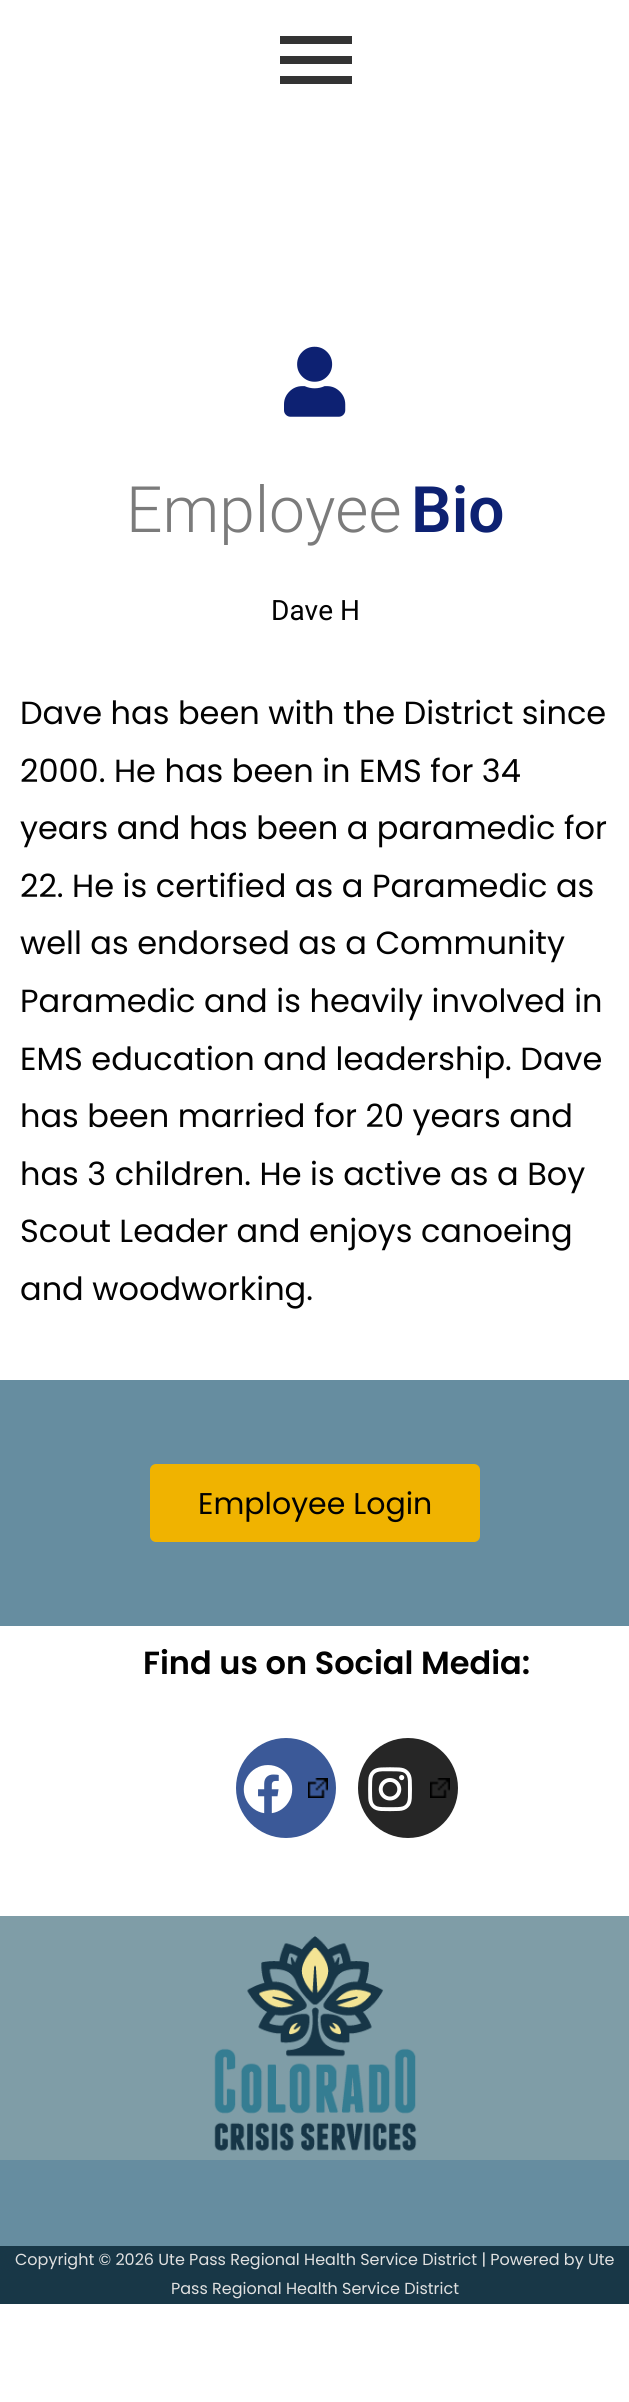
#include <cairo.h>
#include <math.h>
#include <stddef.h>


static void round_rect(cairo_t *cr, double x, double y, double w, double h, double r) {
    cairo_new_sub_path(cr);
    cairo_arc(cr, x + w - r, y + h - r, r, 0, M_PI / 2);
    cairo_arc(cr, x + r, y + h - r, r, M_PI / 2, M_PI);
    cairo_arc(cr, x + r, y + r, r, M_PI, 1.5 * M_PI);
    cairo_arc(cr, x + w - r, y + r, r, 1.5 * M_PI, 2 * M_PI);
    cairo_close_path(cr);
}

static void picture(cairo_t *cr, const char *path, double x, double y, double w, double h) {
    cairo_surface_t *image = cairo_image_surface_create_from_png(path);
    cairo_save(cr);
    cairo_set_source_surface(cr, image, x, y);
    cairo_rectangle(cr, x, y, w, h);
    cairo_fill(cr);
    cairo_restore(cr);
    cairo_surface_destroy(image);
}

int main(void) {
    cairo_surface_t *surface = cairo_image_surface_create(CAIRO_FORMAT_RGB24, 629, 2402);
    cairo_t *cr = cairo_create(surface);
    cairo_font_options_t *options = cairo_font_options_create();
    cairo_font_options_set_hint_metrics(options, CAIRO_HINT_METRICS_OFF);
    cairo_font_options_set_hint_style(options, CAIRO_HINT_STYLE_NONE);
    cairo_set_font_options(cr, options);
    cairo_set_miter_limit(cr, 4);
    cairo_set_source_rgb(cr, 1, 1, 1);
    cairo_paint(cr);
    cairo_set_source_rgb(cr, 0.2, 0.2, 0.2);
    cairo_rectangle(cr, 280, 36, 72, 8);
    cairo_fill(cr);
    cairo_rectangle(cr, 280, 56, 72, 8);
    cairo_fill(cr);
    cairo_rectangle(cr, 280, 76, 72, 8);
    cairo_fill(cr);
    picture(cr, "img1.png", 284, 346, 62, 71);
    cairo_select_font_face(cr, "Roboto Light", CAIRO_FONT_SLANT_NORMAL, CAIRO_FONT_WEIGHT_NORMAL);
    cairo_set_font_size(cr, 64);
    cairo_set_source_rgb(cr, 0.482, 0.482, 0.482);
    cairo_move_to(cr, 126, 532);
    cairo_show_text(cr, "Employee");
    cairo_select_font_face(cr, "Roboto SemiBold", CAIRO_FONT_SLANT_NORMAL, CAIRO_FONT_WEIGHT_NORMAL);
    cairo_set_source_rgb(cr, 0.051, 0.129, 0.447);
    cairo_move_to(cr, 411, 532);
    cairo_show_text(cr, "Bio");
    cairo_select_font_face(cr, "Roboto", CAIRO_FONT_SLANT_NORMAL, CAIRO_FONT_WEIGHT_NORMAL);
    cairo_set_font_size(cr, 28);
    cairo_set_source_rgb(cr, 0.008, 0.008, 0.008);
    cairo_move_to(cr, 271, 620);
    cairo_show_text(cr, "Dave H");
    cairo_select_font_face(cr, "Poppins", CAIRO_FONT_SLANT_NORMAL, CAIRO_FONT_WEIGHT_NORMAL);
    cairo_set_font_size(cr, 32);
    cairo_move_to(cr, 20, 724);
    cairo_show_text(cr, "Dave has been with the District since");
    cairo_move_to(cr, 20, 782);
    cairo_show_text(cr, "2000. He has been in EMS for 34");
    cairo_move_to(cr, 20, 839);
    cairo_show_text(cr, "years and has been a paramedic for");
    cairo_move_to(cr, 20, 897);
    cairo_show_text(cr, "22. He is certified as a Paramedic as");
    cairo_move_to(cr, 20, 954);
    cairo_show_text(cr, "well as endorsed as a Community");
    cairo_move_to(cr, 20, 1012);
    cairo_show_text(cr, "Paramedic and is heavily involved in");
    cairo_move_to(cr, 20, 1070);
    cairo_show_text(cr, "EMS education and leadership. Dave");
    cairo_move_to(cr, 20, 1127);
    cairo_show_text(cr, "has been married for 20 years and");
    cairo_move_to(cr, 20, 1185);
    cairo_show_text(cr, "has 3 children. He is active as a Boy");
    cairo_move_to(cr, 20, 1242);
    cairo_show_text(cr, "Scout Leader and enjoys canoeing");
    cairo_move_to(cr, 20, 1300);
    cairo_show_text(cr, "and woodworking.");
    cairo_set_source_rgb(cr, 0.4, 0.553, 0.627);
    cairo_rectangle(cr, 0, 1380, 629, 246);
    cairo_fill(cr);
    cairo_set_source_rgb(cr, 0.941, 0.702, 0);
    round_rect(cr, 150, 1464, 330, 78, 6);
    cairo_fill(cr);
    cairo_set_font_size(cr, 30);
    cairo_set_source_rgb(cr, 0.008, 0.008, 0.008);
    cairo_move_to(cr, 198, 1514);
    cairo_show_text(cr, "Employee Login");
    cairo_select_font_face(cr, "Poppins SemiBold", CAIRO_FONT_SLANT_NORMAL, CAIRO_FONT_WEIGHT_NORMAL);
    cairo_set_font_size(cr, 32);
    cairo_move_to(cr, 143, 1674);
    cairo_show_text(cr, "Find us on Social Media:");
    cairo_set_source_rgb(cr, 0.231, 0.349, 0.596);
    cairo_new_path(cr);
    cairo_arc(cr, 286, 1788, 50, 0, 2 * M_PI);
    cairo_fill(cr);
    picture(cr, "img2.png", 243, 1765, 50, 49);
    picture(cr, "img3.png", 308, 1778, 20, 20);
    cairo_set_source_rgb(cr, 0.149, 0.149, 0.149);
    cairo_arc(cr, 408, 1788, 50, 0, 2 * M_PI);
    cairo_fill(cr);
    picture(cr, "img4.png", 368, 1767, 44, 45);
    picture(cr, "img5.png", 430, 1778, 20, 20);
    cairo_set_source_rgb(cr, 0.498, 0.616, 0.655);
    cairo_rectangle(cr, 0, 1916, 629, 244);
    cairo_fill(cr);
    picture(cr, "img6.png", 214, 1936, 203, 215);
    cairo_set_source_rgb(cr, 0.4, 0.553, 0.627);
    cairo_rectangle(cr, 0, 2160, 629, 86);
    cairo_fill(cr);
    cairo_set_source_rgb(cr, 0.094, 0.216, 0.278);
    cairo_rectangle(cr, 0, 2246, 629, 58);
    cairo_fill(cr);
    cairo_select_font_face(cr, "Poppins", CAIRO_FONT_SLANT_NORMAL, CAIRO_FONT_WEIGHT_NORMAL);
    cairo_set_font_size(cr, 16);
    cairo_set_source_rgb(cr, 0.882, 0.882, 0.882);
    cairo_move_to(cr, 15, 2265);
    cairo_show_text(cr, "Copyright © 2026 Ute Pass Regional Health Service District | Powered by Ute");
    cairo_move_to(cr, 171, 2294);
    cairo_show_text(cr, "Pass Regional Health Service District");
    cairo_surface_write_to_png(surface, "page.png");
    cairo_font_options_destroy(options);
    cairo_destroy(cr);
    cairo_surface_destroy(surface);
    return 0;
}
